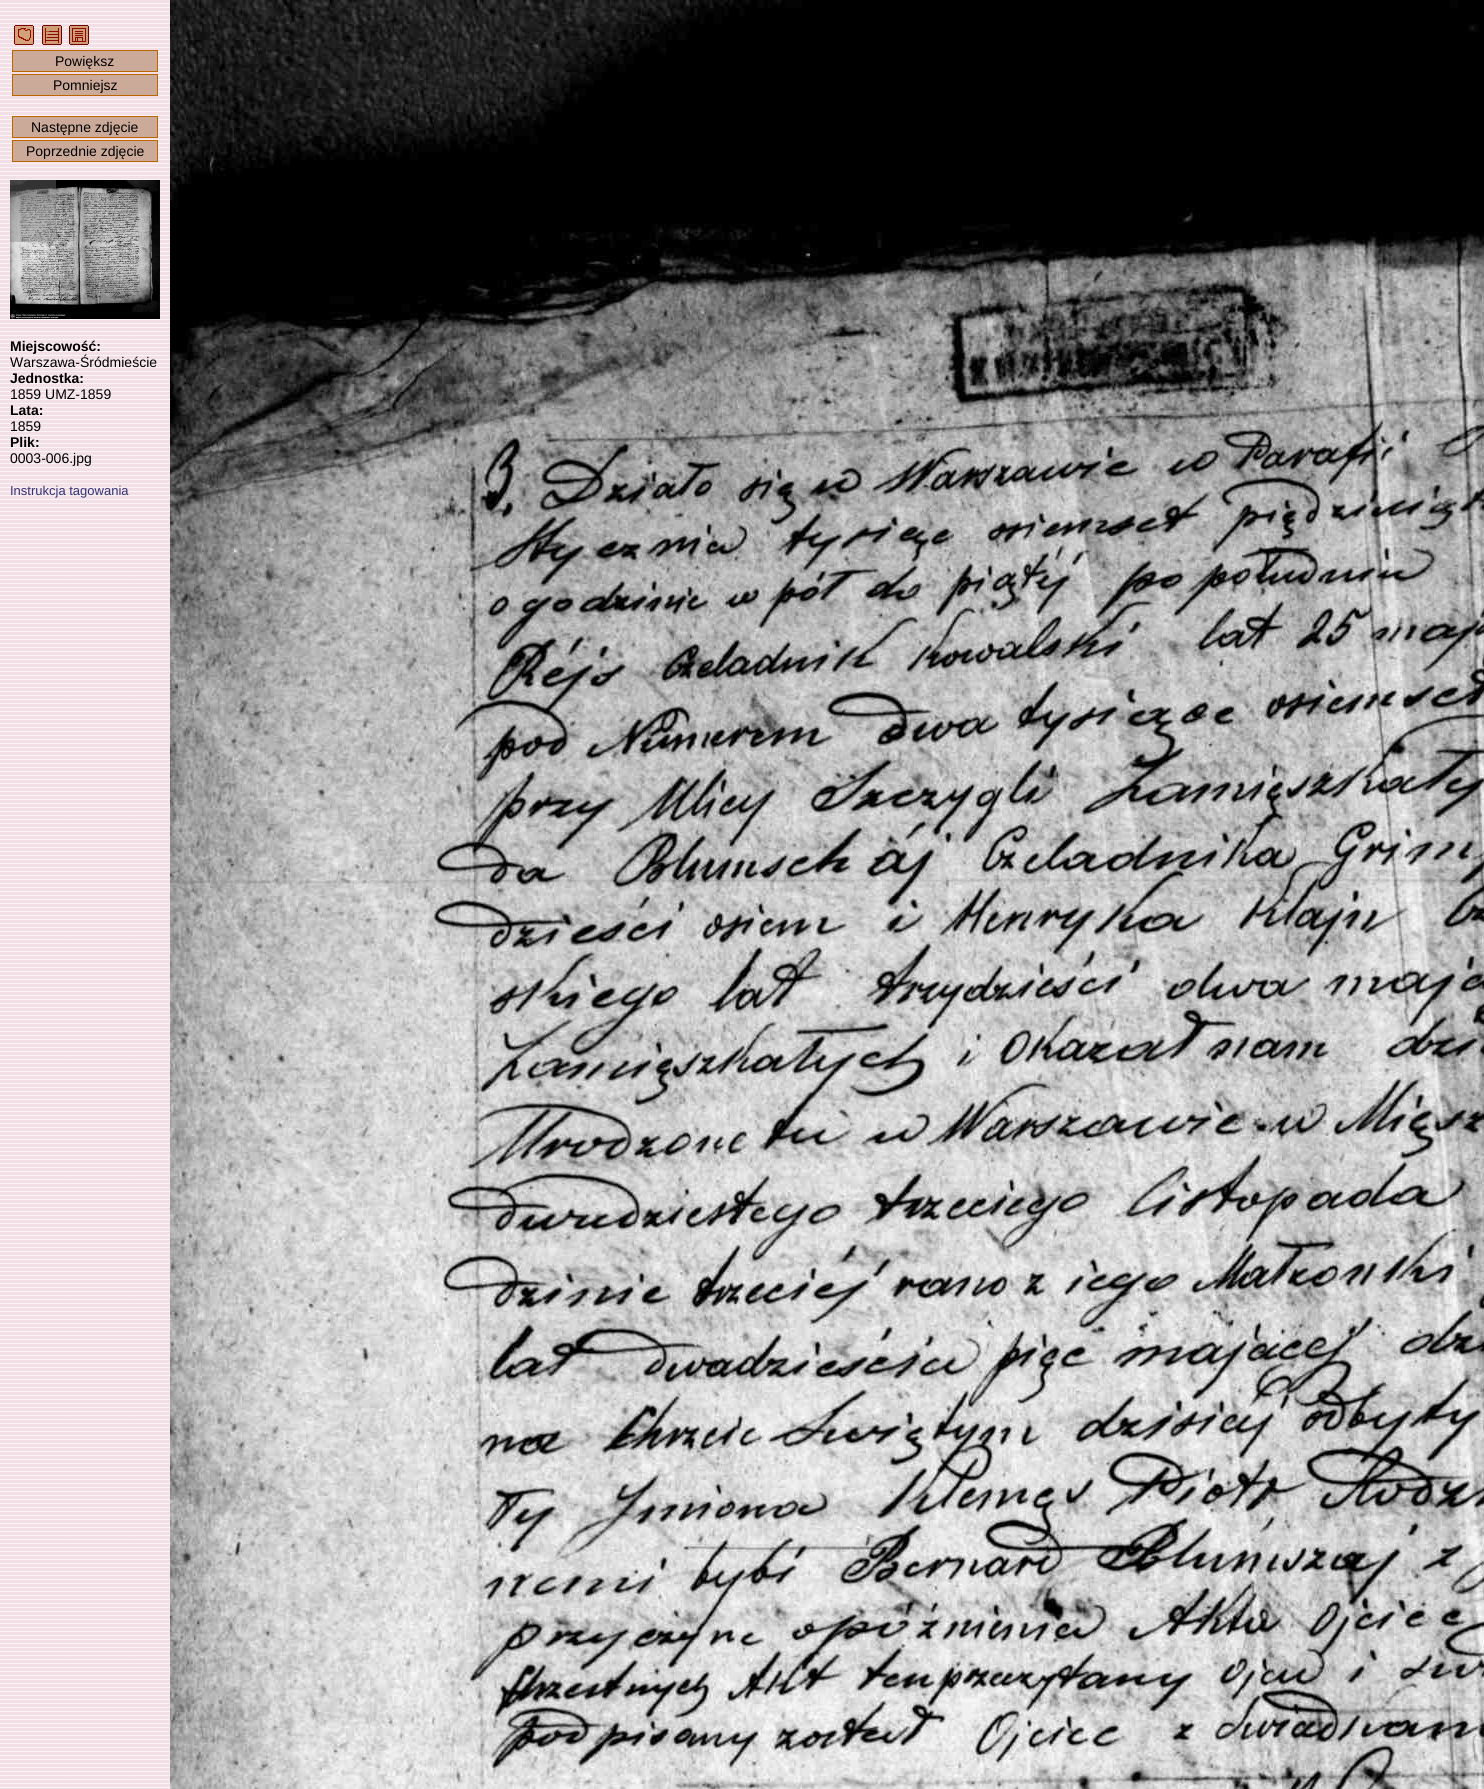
#include <cairo.h>
#include <math.h>
#include <stddef.h>


static void picture(cairo_t *cr, const char *path, double x, double y, double w, double h) {
    cairo_surface_t *image = cairo_image_surface_create_from_png(path);
    cairo_save(cr);
    cairo_set_source_surface(cr, image, x, y);
    cairo_rectangle(cr, x, y, w, h);
    cairo_fill(cr);
    cairo_restore(cr);
    cairo_surface_destroy(image);
}

int main(void) {
    cairo_surface_t *surface = cairo_image_surface_create(CAIRO_FORMAT_RGB24, 1484, 1789);
    cairo_t *cr = cairo_create(surface);
    cairo_font_options_t *options = cairo_font_options_create();
    cairo_font_options_set_hint_metrics(options, CAIRO_HINT_METRICS_OFF);
    cairo_font_options_set_hint_style(options, CAIRO_HINT_STYLE_NONE);
    cairo_set_font_options(cr, options);
    cairo_set_miter_limit(cr, 4);
    cairo_set_source_rgb(cr, 1, 1, 1);
    cairo_paint(cr);
    picture(cr, "img1.png", 0, 0, 170, 1789);
    picture(cr, "img2.png", 14, 25, 20, 20);
    picture(cr, "img3.png", 42, 25, 20, 20);
    picture(cr, "img4.png", 69, 25, 20, 20);
    cairo_set_source_rgb(cr, 0.8, 0.667, 0.6);
    cairo_rectangle(cr, 12.5, 50.5, 145, 21);
    cairo_fill_preserve(cr);
    cairo_set_source_rgb(cr, 0.733, 0.4, 0);
    cairo_set_line_width(cr, 1);
    cairo_stroke(cr);
    cairo_select_font_face(cr, "Liberation Sans", CAIRO_FONT_SLANT_NORMAL, CAIRO_FONT_WEIGHT_NORMAL);
    cairo_set_font_size(cr, 14);
    cairo_set_source_rgb(cr, 0, 0, 0);
    cairo_move_to(cr, 55, 66);
    cairo_show_text(cr, "Powiększ");
    cairo_set_source_rgb(cr, 0.8, 0.667, 0.6);
    cairo_rectangle(cr, 12.5, 74.5, 145, 21);
    cairo_fill_preserve(cr);
    cairo_set_source_rgb(cr, 0.733, 0.4, 0);
    cairo_stroke(cr);
    cairo_set_source_rgb(cr, 0, 0, 0);
    cairo_move_to(cr, 53, 90);
    cairo_show_text(cr, "Pomniejsz");
    cairo_set_source_rgb(cr, 0.8, 0.667, 0.6);
    cairo_rectangle(cr, 12.5, 116.5, 145, 21);
    cairo_fill_preserve(cr);
    cairo_set_source_rgb(cr, 0.733, 0.4, 0);
    cairo_stroke(cr);
    cairo_set_source_rgb(cr, 0, 0, 0);
    cairo_move_to(cr, 31, 132);
    cairo_show_text(cr, "Następne zdjęcie");
    cairo_set_source_rgb(cr, 0.8, 0.667, 0.6);
    cairo_rectangle(cr, 12.5, 140.5, 145, 21);
    cairo_fill_preserve(cr);
    cairo_set_source_rgb(cr, 0.733, 0.4, 0);
    cairo_stroke(cr);
    cairo_set_source_rgb(cr, 0, 0, 0);
    cairo_move_to(cr, 26, 156);
    cairo_show_text(cr, "Poprzednie zdjęcie");
    picture(cr, "img5.png", 10, 180, 150, 139);
    cairo_select_font_face(cr, "Liberation Sans", CAIRO_FONT_SLANT_NORMAL, CAIRO_FONT_WEIGHT_BOLD);
    cairo_move_to(cr, 10, 351);
    cairo_show_text(cr, "Miejscowość:");
    cairo_select_font_face(cr, "Liberation Sans", CAIRO_FONT_SLANT_NORMAL, CAIRO_FONT_WEIGHT_NORMAL);
    cairo_move_to(cr, 10, 367);
    cairo_show_text(cr, "Warszawa-Śródmieście");
    cairo_select_font_face(cr, "Liberation Sans", CAIRO_FONT_SLANT_NORMAL, CAIRO_FONT_WEIGHT_BOLD);
    cairo_move_to(cr, 10, 383);
    cairo_show_text(cr, "Jednostka:");
    cairo_select_font_face(cr, "Liberation Sans", CAIRO_FONT_SLANT_NORMAL, CAIRO_FONT_WEIGHT_NORMAL);
    cairo_move_to(cr, 10, 399);
    cairo_show_text(cr, "1859 UMZ-1859");
    cairo_select_font_face(cr, "Liberation Sans", CAIRO_FONT_SLANT_NORMAL, CAIRO_FONT_WEIGHT_BOLD);
    cairo_move_to(cr, 10, 415);
    cairo_show_text(cr, "Lata:");
    cairo_select_font_face(cr, "Liberation Sans", CAIRO_FONT_SLANT_NORMAL, CAIRO_FONT_WEIGHT_NORMAL);
    cairo_move_to(cr, 10, 431);
    cairo_show_text(cr, "1859");
    cairo_select_font_face(cr, "Liberation Sans", CAIRO_FONT_SLANT_NORMAL, CAIRO_FONT_WEIGHT_BOLD);
    cairo_move_to(cr, 10, 447);
    cairo_show_text(cr, "Plik:");
    cairo_select_font_face(cr, "Liberation Sans", CAIRO_FONT_SLANT_NORMAL, CAIRO_FONT_WEIGHT_NORMAL);
    cairo_move_to(cr, 10, 463);
    cairo_show_text(cr, "0003-006.jpg");
    cairo_set_font_size(cr, 13);
    cairo_set_source_rgb(cr, 0.2, 0.2, 0.467);
    cairo_move_to(cr, 10, 495);
    cairo_show_text(cr, "Instrukcja tagowania");
    picture(cr, "img6.png", 170, 0, 1314, 1789);
    cairo_surface_write_to_png(surface, "page.png");
    cairo_font_options_destroy(options);
    cairo_destroy(cr);
    cairo_surface_destroy(surface);
    return 0;
}
